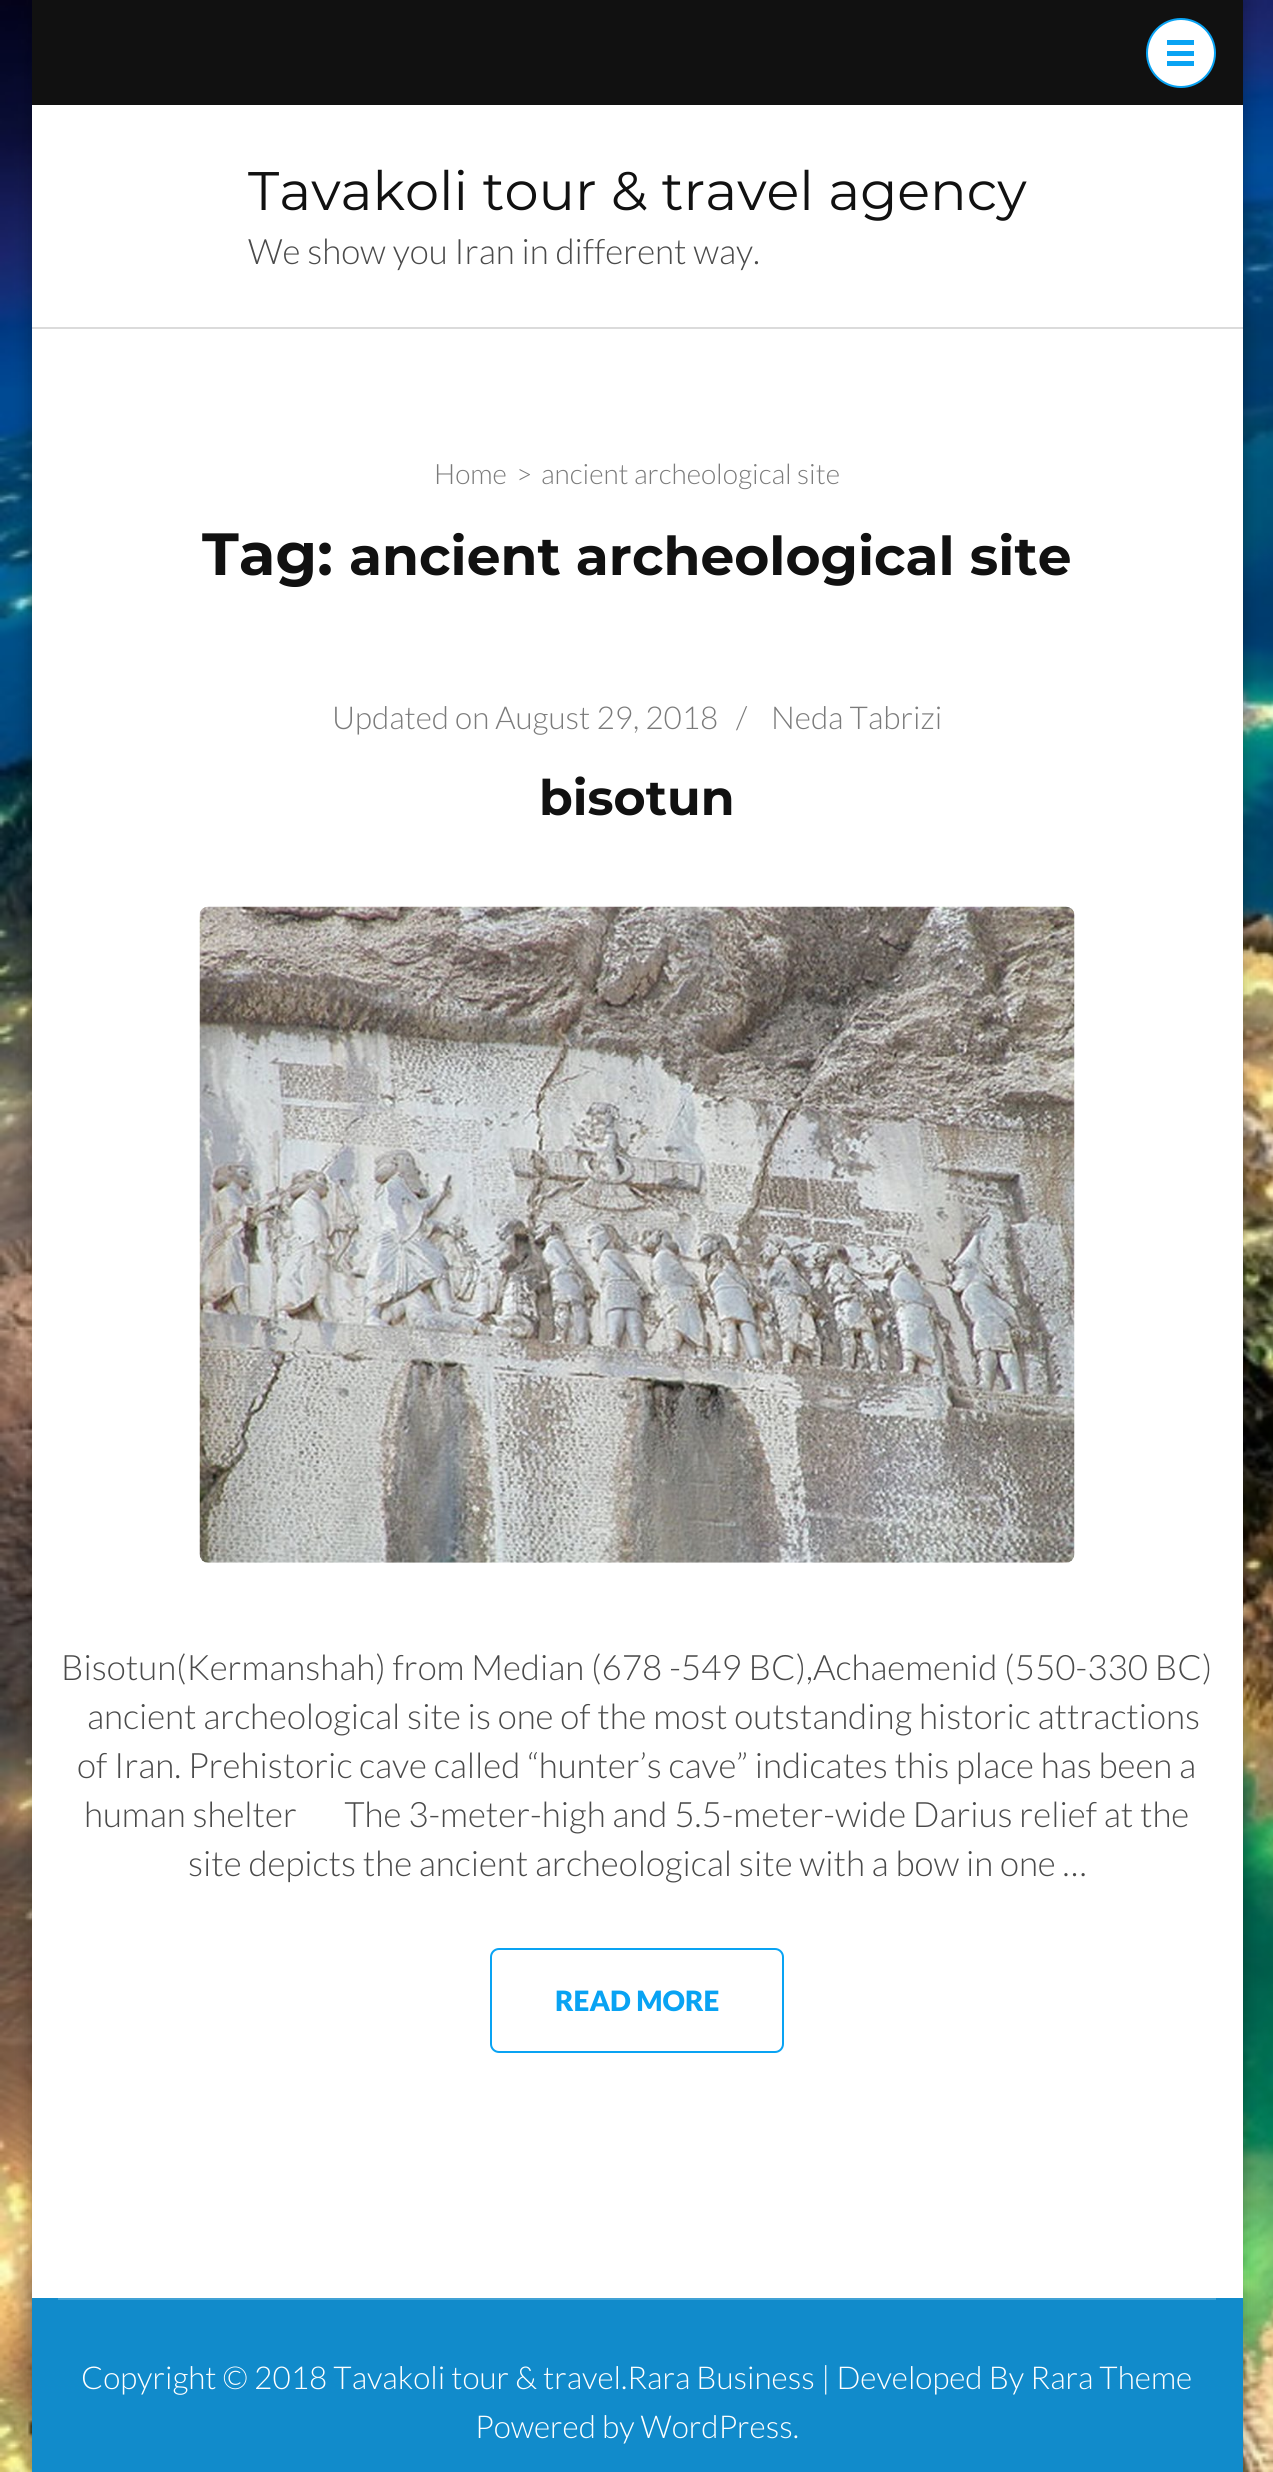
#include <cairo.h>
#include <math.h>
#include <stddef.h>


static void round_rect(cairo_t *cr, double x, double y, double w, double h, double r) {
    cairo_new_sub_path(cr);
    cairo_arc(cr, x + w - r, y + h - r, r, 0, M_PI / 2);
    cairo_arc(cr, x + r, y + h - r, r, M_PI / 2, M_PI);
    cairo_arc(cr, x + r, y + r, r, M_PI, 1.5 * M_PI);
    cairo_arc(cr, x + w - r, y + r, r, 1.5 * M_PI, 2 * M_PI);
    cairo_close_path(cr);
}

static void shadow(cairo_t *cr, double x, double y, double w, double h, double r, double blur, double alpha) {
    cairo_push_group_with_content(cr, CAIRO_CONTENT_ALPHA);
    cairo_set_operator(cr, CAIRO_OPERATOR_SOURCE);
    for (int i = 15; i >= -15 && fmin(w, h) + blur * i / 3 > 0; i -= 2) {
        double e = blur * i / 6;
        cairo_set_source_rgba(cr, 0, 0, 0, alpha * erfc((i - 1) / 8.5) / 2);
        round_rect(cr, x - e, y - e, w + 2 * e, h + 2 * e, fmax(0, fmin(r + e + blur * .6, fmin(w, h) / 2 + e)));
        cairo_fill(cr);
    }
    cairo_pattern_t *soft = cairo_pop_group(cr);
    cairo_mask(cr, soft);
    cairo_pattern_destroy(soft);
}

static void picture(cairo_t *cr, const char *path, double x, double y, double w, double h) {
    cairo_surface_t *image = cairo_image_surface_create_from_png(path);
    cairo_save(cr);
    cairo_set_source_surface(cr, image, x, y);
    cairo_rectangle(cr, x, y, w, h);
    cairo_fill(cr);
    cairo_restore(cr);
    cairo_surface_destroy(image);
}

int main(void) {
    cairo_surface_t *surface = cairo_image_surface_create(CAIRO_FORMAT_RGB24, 1273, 2472);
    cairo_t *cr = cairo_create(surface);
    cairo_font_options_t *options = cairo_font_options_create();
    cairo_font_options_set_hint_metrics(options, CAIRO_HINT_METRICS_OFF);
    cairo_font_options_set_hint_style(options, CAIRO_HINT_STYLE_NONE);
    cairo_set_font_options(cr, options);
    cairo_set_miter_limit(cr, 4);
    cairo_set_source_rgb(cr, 1, 1, 1);
    cairo_paint(cr);
    picture(cr, "img1.png", 0, 0, 1273, 2472);
    cairo_set_source_rgb(cr, 0, 0, 0);
    shadow(cr, 32, 0, 1211, 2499, 0, 9, 0.3);
    cairo_set_source_rgb(cr, 1, 1, 1);
    cairo_rectangle(cr, 32, 105, 1211, 2193);
    cairo_fill(cr);
    cairo_set_source_rgb(cr, 0.067, 0.067, 0.067);
    cairo_rectangle(cr, 32, 0, 1211, 105);
    cairo_fill(cr);
    cairo_set_source_rgb(cr, 1, 1, 1);
    cairo_arc(cr, 1181, 53, 34, 0, 2 * M_PI);
    cairo_fill_preserve(cr);
    cairo_set_source_rgb(cr, 0.039, 0.639, 0.953);
    cairo_stroke(cr);
    cairo_rectangle(cr, 1167, 40, 27, 5);
    cairo_fill(cr);
    cairo_rectangle(cr, 1167, 51, 27, 5);
    cairo_fill(cr);
    cairo_rectangle(cr, 1167, 61, 27, 5);
    cairo_fill(cr);
    cairo_set_source_rgb(cr, 0.859, 0.859, 0.859);
    cairo_rectangle(cr, 32, 327, 1211, 2);
    cairo_fill(cr);
    cairo_select_font_face(cr, "Montserrat", CAIRO_FONT_SLANT_NORMAL, CAIRO_FONT_WEIGHT_NORMAL);
    cairo_set_font_size(cr, 54.25);
    cairo_set_source_rgb(cr, 0.067, 0.067, 0.067);
    cairo_move_to(cr, 248, 210);
    cairo_show_text(cr, "Tavakoli tour & travel agency");
    cairo_select_font_face(cr, "Lato Light", CAIRO_FONT_SLANT_NORMAL, CAIRO_FONT_WEIGHT_NORMAL);
    cairo_set_font_size(cr, 35);
    cairo_set_source_rgb(cr, 0.29, 0.29, 0.29);
    cairo_move_to(cr, 248, 264);
    cairo_show_text(cr, "We show you Iran in different way.");
    cairo_set_font_size(cr, 28);
    cairo_set_source_rgb(cr, 0.482, 0.482, 0.482);
    cairo_move_to(cr, 434, 484);
    cairo_show_text(cr, "Home");
    cairo_move_to(cr, 516, 484);
    cairo_show_text(cr, ">");
    cairo_move_to(cr, 541, 484);
    cairo_show_text(cr, "ancient archeological site");
    cairo_select_font_face(cr, "Montserrat", CAIRO_FONT_SLANT_NORMAL, CAIRO_FONT_WEIGHT_BOLD);
    cairo_set_font_size(cr, 59.5);
    cairo_set_source_rgb(cr, 0.067, 0.067, 0.067);
    cairo_move_to(cr, 202, 575);
    cairo_show_text(cr, "Tag:");
    cairo_set_font_size(cr, 53.5);
    cairo_move_to(cr, 349, 575);
    cairo_show_text(cr, "ancient archeological site");
    cairo_select_font_face(cr, "Lato Light", CAIRO_FONT_SLANT_NORMAL, CAIRO_FONT_WEIGHT_NORMAL);
    cairo_set_font_size(cr, 31.5);
    cairo_set_source_rgb(cr, 0.482, 0.482, 0.482);
    cairo_move_to(cr, 332, 729);
    cairo_show_text(cr, "Updated on August 29, 2018");
    cairo_move_to(cr, 736, 729);
    cairo_show_text(cr, "/");
    cairo_move_to(cr, 771, 729);
    cairo_show_text(cr, "Neda Tabrizi");
    cairo_select_font_face(cr, "Montserrat", CAIRO_FONT_SLANT_NORMAL, CAIRO_FONT_WEIGHT_BOLD);
    cairo_set_font_size(cr, 49);
    cairo_set_source_rgb(cr, 0.067, 0.067, 0.067);
    cairo_move_to(cr, 539, 815);
    cairo_show_text(cr, "bisotun");
    picture(cr, "img2.png", 199, 906, 876, 657);
    cairo_select_font_face(cr, "Lato Light", CAIRO_FONT_SLANT_NORMAL, CAIRO_FONT_WEIGHT_NORMAL);
    cairo_set_font_size(cr, 35);
    cairo_set_source_rgb(cr, 0.29, 0.29, 0.29);
    cairo_move_to(cr, 61, 1680);
    cairo_show_text(cr, "Bisotun(Kermanshah) from Median (678 -549 BC),Achaemenid (550-330 BC)");
    cairo_move_to(cr, 87, 1729);
    cairo_show_text(cr, "ancient archeological site is one of the most outstanding historic attractions");
    cairo_move_to(cr, 77, 1778);
    cairo_show_text(cr, "of Iran. Prehistoric cave called “hunter’s cave” indicates this place has been a");
    cairo_move_to(cr, 84, 1827);
    cairo_show_text(cr, "human shelter       The 3-meter-high and 5.5-meter-wide Darius relief at the");
    cairo_move_to(cr, 188, 1876);
    cairo_show_text(cr, "site depicts the ancient archeological site with a bow in one …");
    round_rect(cr, 491, 1949, 292, 103, 8);
    cairo_set_source_rgb(cr, 0.039, 0.639, 0.953);
    cairo_stroke(cr);
    cairo_select_font_face(cr, "Lato Black", CAIRO_FONT_SLANT_NORMAL, CAIRO_FONT_WEIGHT_NORMAL);
    cairo_set_font_size(cr, 28);
    cairo_move_to(cr, 555, 2011);
    cairo_show_text(cr, "READ MORE");
    cairo_set_source_rgb(cr, 0.067, 0.545, 0.796);
    cairo_rectangle(cr, 32, 2298, 1211, 174);
    cairo_fill(cr);
    cairo_set_source_rgb(cr, 0.255, 0.635, 0.835);
    cairo_rectangle(cr, 58, 2298, 1158, 2);
    cairo_fill(cr);
    cairo_select_font_face(cr, "Lato Light", CAIRO_FONT_SLANT_NORMAL, CAIRO_FONT_WEIGHT_NORMAL);
    cairo_set_font_size(cr, 31.5);
    cairo_set_source_rgb(cr, 1, 1, 1);
    cairo_move_to(cr, 81, 2389);
    cairo_show_text(cr, "Copyright © 2018 Tavakoli tour & travel.Rara Business | Developed By Rara Theme");
    cairo_move_to(cr, 475, 2438);
    cairo_show_text(cr, "Powered by WordPress.");
    cairo_surface_write_to_png(surface, "page.png");
    cairo_font_options_destroy(options);
    cairo_destroy(cr);
    cairo_surface_destroy(surface);
    return 0;
}
